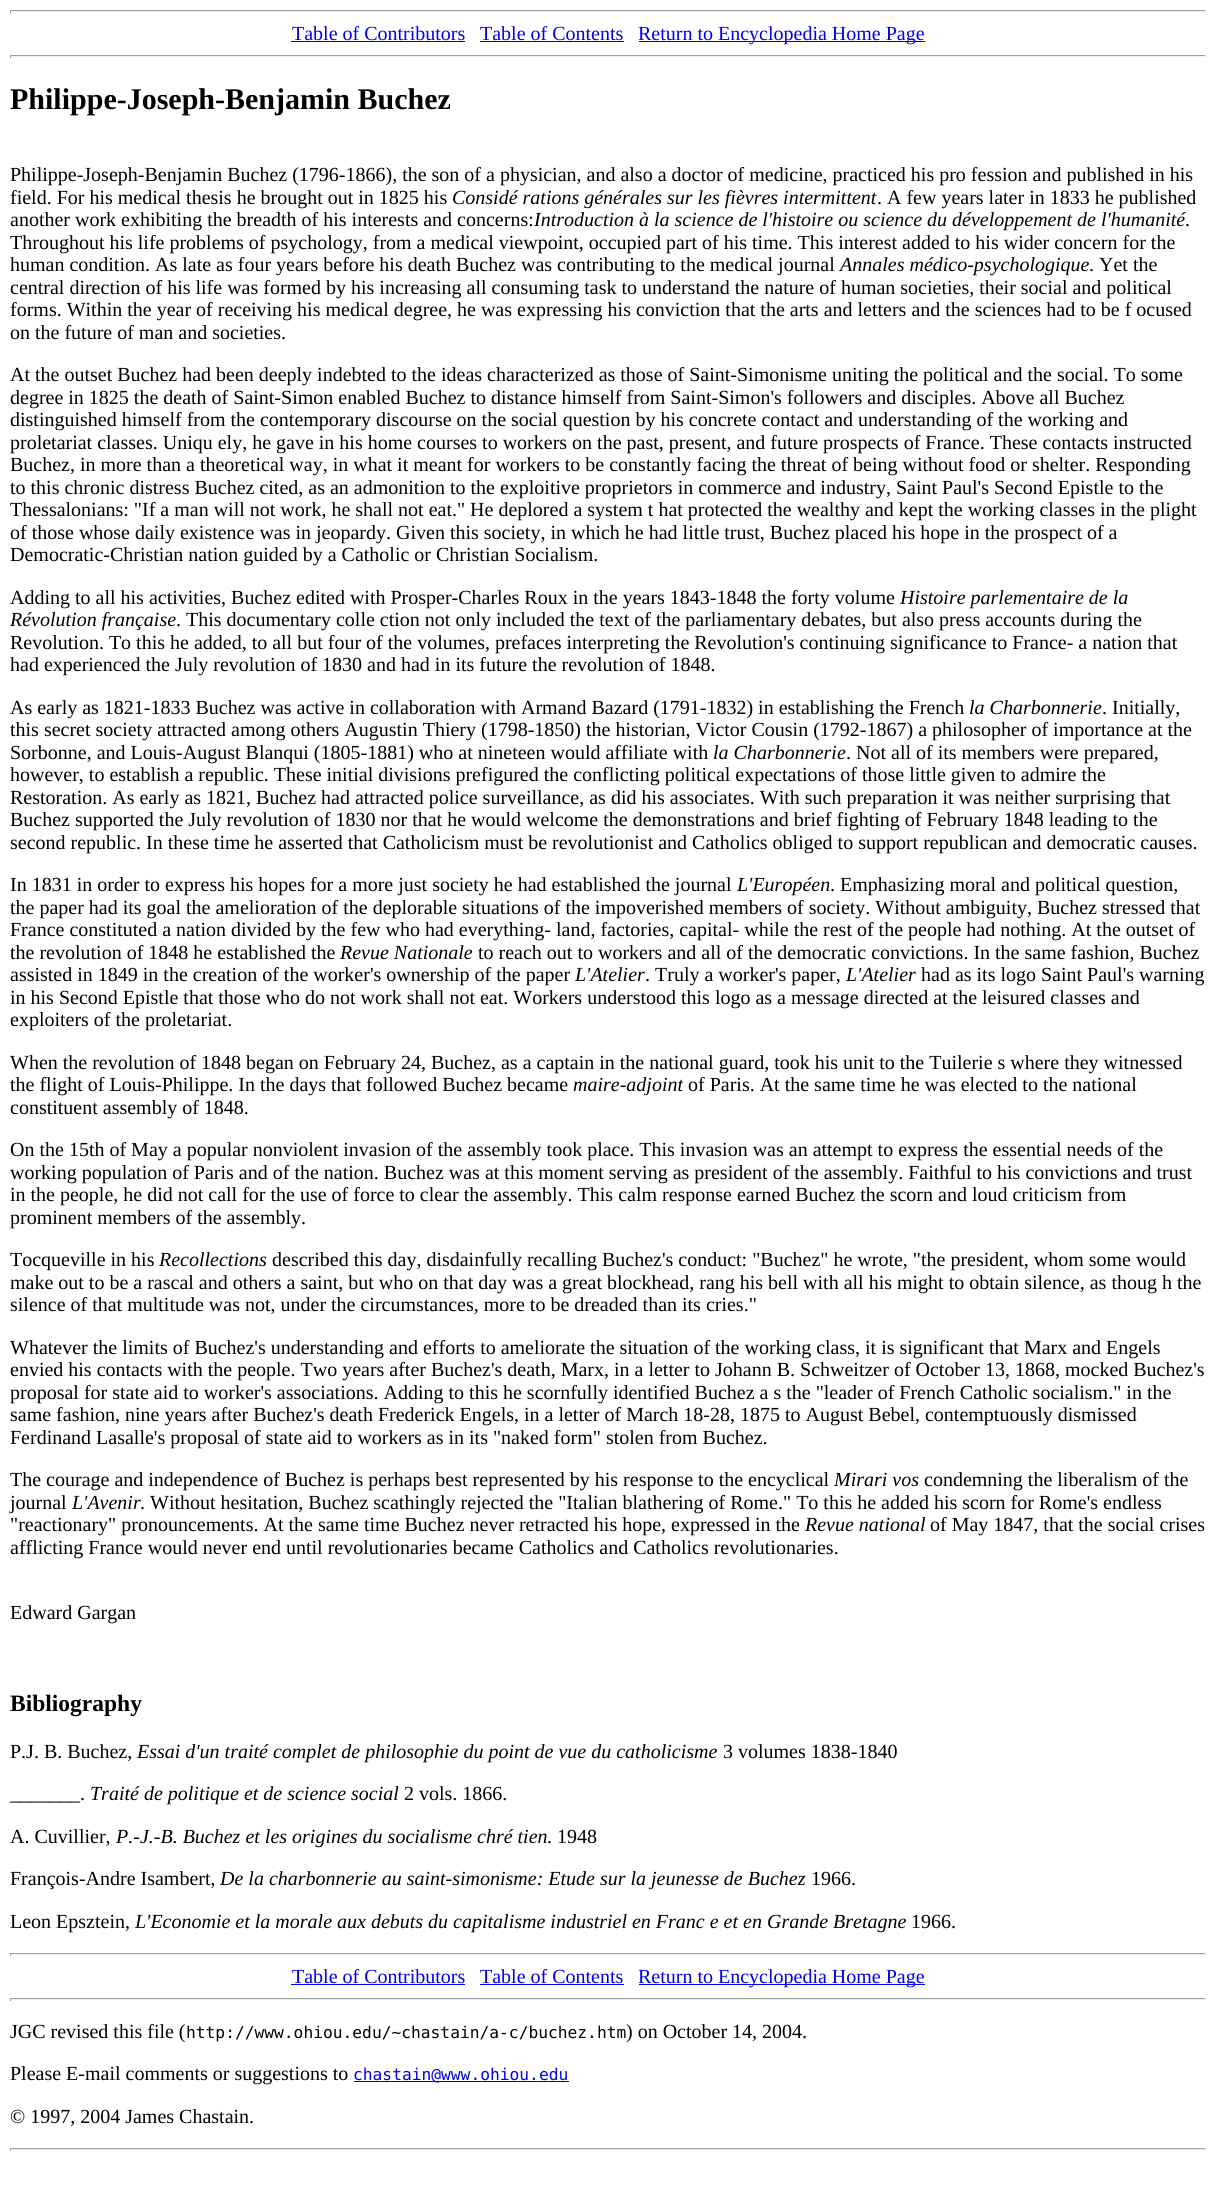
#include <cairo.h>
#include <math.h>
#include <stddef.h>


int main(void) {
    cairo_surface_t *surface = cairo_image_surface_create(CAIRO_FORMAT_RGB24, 1216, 2200);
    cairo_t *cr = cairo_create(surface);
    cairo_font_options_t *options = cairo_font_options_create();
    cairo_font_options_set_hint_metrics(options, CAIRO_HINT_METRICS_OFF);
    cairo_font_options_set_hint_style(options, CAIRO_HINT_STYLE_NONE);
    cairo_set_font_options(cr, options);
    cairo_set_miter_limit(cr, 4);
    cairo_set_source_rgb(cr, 1, 1, 1);
    cairo_paint(cr);
    cairo_set_source_rgb(cr, 0.624, 0.624, 0.624);
    cairo_rectangle(cr, 10, 10, 1196, 1);
    cairo_fill(cr);
    cairo_set_source_rgb(cr, 0.933, 0.933, 0.933);
    cairo_rectangle(cr, 1205, 10, 1, 3);
    cairo_fill(cr);
    cairo_rectangle(cr, 10, 11, 1196, 1);
    cairo_fill(cr);
    cairo_set_source_rgb(cr, 0.624, 0.624, 0.624);
    cairo_rectangle(cr, 10, 10, 1, 3);
    cairo_fill(cr);
    cairo_select_font_face(cr, "Liberation Serif", CAIRO_FONT_SLANT_NORMAL, CAIRO_FONT_WEIGHT_NORMAL);
    cairo_set_font_size(cr, 20);
    cairo_set_source_rgb(cr, 0, 0, 0.933);
    cairo_move_to(cr, 292, 40);
    cairo_show_text(cr, "Table of Contributors");
    cairo_rectangle(cr, 291, 41, 174, 1);
    cairo_fill(cr);
    cairo_move_to(cr, 480, 40);
    cairo_show_text(cr, "Table of Contents");
    cairo_rectangle(cr, 480, 41, 144, 1);
    cairo_fill(cr);
    cairo_rectangle(cr, 639, 41, 286, 1);
    cairo_fill(cr);
    cairo_move_to(cr, 638, 40);
    cairo_show_text(cr, "Return to Encyclopedia Home Page");
    cairo_set_source_rgb(cr, 0.624, 0.624, 0.624);
    cairo_rectangle(cr, 10, 55, 1196, 1);
    cairo_fill(cr);
    cairo_set_source_rgb(cr, 0.933, 0.933, 0.933);
    cairo_rectangle(cr, 1205, 55, 1, 3);
    cairo_fill(cr);
    cairo_rectangle(cr, 10, 56, 1196, 1);
    cairo_fill(cr);
    cairo_set_source_rgb(cr, 0.624, 0.624, 0.624);
    cairo_rectangle(cr, 10, 55, 1, 3);
    cairo_fill(cr);
    cairo_select_font_face(cr, "Liberation Serif", CAIRO_FONT_SLANT_NORMAL, CAIRO_FONT_WEIGHT_BOLD);
    cairo_set_font_size(cr, 30);
    cairo_set_source_rgb(cr, 0, 0, 0);
    cairo_move_to(cr, 10, 109);
    cairo_show_text(cr, "Philippe-Joseph-Benjamin Buchez");
    cairo_select_font_face(cr, "Liberation Serif", CAIRO_FONT_SLANT_NORMAL, CAIRO_FONT_WEIGHT_NORMAL);
    cairo_set_font_size(cr, 20);
    cairo_move_to(cr, 10, 181);
    cairo_show_text(cr, "Philippe-Joseph-Benjamin Buchez (1796-1866), the son of a physician, and also a doctor of medicine, practiced his pro fession and published in his");
    cairo_move_to(cr, 10, 204);
    cairo_show_text(cr, "field. For his medical thesis he brought out in 1825 his");
    cairo_select_font_face(cr, "Liberation Serif", CAIRO_FONT_SLANT_ITALIC, CAIRO_FONT_WEIGHT_NORMAL);
    cairo_move_to(cr, 452, 204);
    cairo_show_text(cr, "Considé rations générales sur les fièvres intermittent");
    cairo_select_font_face(cr, "Liberation Serif", CAIRO_FONT_SLANT_NORMAL, CAIRO_FONT_WEIGHT_NORMAL);
    cairo_move_to(cr, 877, 204);
    cairo_show_text(cr, ". A few years later in 1833 he published");
    cairo_move_to(cr, 10, 226);
    cairo_show_text(cr, "another work exhibiting the breadth of his interests and concerns:");
    cairo_select_font_face(cr, "Liberation Serif", CAIRO_FONT_SLANT_ITALIC, CAIRO_FONT_WEIGHT_NORMAL);
    cairo_move_to(cr, 534, 226);
    cairo_show_text(cr, "Introduction à la science de l'histoire ou science du développement de l'humanité");
    cairo_select_font_face(cr, "Liberation Serif", CAIRO_FONT_SLANT_NORMAL, CAIRO_FONT_WEIGHT_NORMAL);
    cairo_move_to(cr, 1185, 226);
    cairo_show_text(cr, ".");
    cairo_move_to(cr, 10, 249);
    cairo_show_text(cr, "Throughout his life problems of psychology, from a medical viewpoint, occupied part of his time. This interest added to his wider concern for the");
    cairo_move_to(cr, 10, 271);
    cairo_show_text(cr, "human condition. As late as four years before his death Buchez was contributing to the medical journal");
    cairo_select_font_face(cr, "Liberation Serif", CAIRO_FONT_SLANT_ITALIC, CAIRO_FONT_WEIGHT_NORMAL);
    cairo_move_to(cr, 840, 271);
    cairo_show_text(cr, "Annales médico-psychologique");
    cairo_select_font_face(cr, "Liberation Serif", CAIRO_FONT_SLANT_NORMAL, CAIRO_FONT_WEIGHT_NORMAL);
    cairo_move_to(cr, 1089, 271);
    cairo_show_text(cr, ". Yet the");
    cairo_move_to(cr, 10, 294);
    cairo_show_text(cr, "central direction of his life was formed by his increasing all consuming task to understand the nature of human societies, their social and political");
    cairo_move_to(cr, 10, 316);
    cairo_show_text(cr, "forms. Within the year of receiving his medical degree, he was expressing his conviction that the arts and letters and the sciences had to be f ocused");
    cairo_move_to(cr, 10, 339);
    cairo_show_text(cr, "on the future of man and societies.");
    cairo_move_to(cr, 10, 381);
    cairo_show_text(cr, "At the outset Buchez had been deeply indebted to the ideas characterized as those of Saint-Simonisme uniting the political and the social. To some");
    cairo_move_to(cr, 10, 404);
    cairo_show_text(cr, "degree in 1825 the death of Saint-Simon enabled Buchez to distance himself from Saint-Simon's followers and disciples. Above all Buchez");
    cairo_move_to(cr, 10, 426);
    cairo_show_text(cr, "distinguished himself from the contemporary discourse on the social question by his concrete contact and understanding of the working and");
    cairo_move_to(cr, 10, 449);
    cairo_show_text(cr, "proletariat classes. Uniqu ely, he gave in his home courses to workers on the past, present, and future prospects of France. These contacts instructed");
    cairo_move_to(cr, 10, 471);
    cairo_show_text(cr, "Buchez, in more than a theoretical way, in what it meant for workers to be constantly facing the threat of being without food or shelter. Responding");
    cairo_move_to(cr, 10, 494);
    cairo_show_text(cr, "to this chronic distress Buchez cited, as an admonition to the exploitive proprietors in commerce and industry, Saint Paul's Second Epistle to the");
    cairo_move_to(cr, 10, 516);
    cairo_show_text(cr, "Thessalonians: \"If a man will not work, he shall not eat.\" He deplored a system t hat protected the wealthy and kept the working classes in the plight");
    cairo_move_to(cr, 10, 539);
    cairo_show_text(cr, "of those whose daily existence was in jeopardy. Given this society, in which he had little trust, Buchez placed his hope in the prospect of a");
    cairo_move_to(cr, 10, 561);
    cairo_show_text(cr, "Democratic-Christian nation guided by a Catholic or Christian Socialism.");
    cairo_move_to(cr, 10, 604);
    cairo_show_text(cr, "Adding to all his activities, Buchez edited with Prosper-Charles Roux in the years 1843-1848 the forty volume");
    cairo_select_font_face(cr, "Liberation Serif", CAIRO_FONT_SLANT_ITALIC, CAIRO_FONT_WEIGHT_NORMAL);
    cairo_move_to(cr, 900, 604);
    cairo_show_text(cr, "Histoire parlementaire de la");
    cairo_move_to(cr, 10, 626);
    cairo_show_text(cr, "Révolution française");
    cairo_select_font_face(cr, "Liberation Serif", CAIRO_FONT_SLANT_NORMAL, CAIRO_FONT_WEIGHT_NORMAL);
    cairo_move_to(cr, 176, 626);
    cairo_show_text(cr, ". This documentary colle ction not only included the text of the parliamentary debates, but also press accounts during the");
    cairo_move_to(cr, 10, 649);
    cairo_show_text(cr, "Revolution. To this he added, to all but four of the volumes, prefaces interpreting the Revolution's continuing significance to France- a nation that");
    cairo_move_to(cr, 10, 671);
    cairo_show_text(cr, "had experienced the July revolution of 1830 and had in its future the revolution of 1848.");
    cairo_move_to(cr, 10, 714);
    cairo_show_text(cr, "As early as 1821-1833 Buchez was active in collaboration with Armand Bazard (1791-1832) in establishing the French");
    cairo_select_font_face(cr, "Liberation Serif", CAIRO_FONT_SLANT_ITALIC, CAIRO_FONT_WEIGHT_NORMAL);
    cairo_move_to(cr, 969, 714);
    cairo_show_text(cr, "la Charbonnerie");
    cairo_select_font_face(cr, "Liberation Serif", CAIRO_FONT_SLANT_NORMAL, CAIRO_FONT_WEIGHT_NORMAL);
    cairo_move_to(cr, 1102, 714);
    cairo_show_text(cr, ". Initially,");
    cairo_move_to(cr, 10, 736);
    cairo_show_text(cr, "this secret society attracted among others Augustin Thiery (1798-1850) the historian, Victor Cousin (1792-1867) a philosopher of importance at the");
    cairo_move_to(cr, 10, 759);
    cairo_show_text(cr, "Sorbonne, and Louis-August Blanqui (1805-1881) who at nineteen would affiliate with");
    cairo_select_font_face(cr, "Liberation Serif", CAIRO_FONT_SLANT_ITALIC, CAIRO_FONT_WEIGHT_NORMAL);
    cairo_move_to(cr, 713, 759);
    cairo_show_text(cr, "la Charbonnerie");
    cairo_select_font_face(cr, "Liberation Serif", CAIRO_FONT_SLANT_NORMAL, CAIRO_FONT_WEIGHT_NORMAL);
    cairo_move_to(cr, 846, 759);
    cairo_show_text(cr, ". Not all of its members were prepared,");
    cairo_move_to(cr, 10, 781);
    cairo_show_text(cr, "however, to establish a republic. These initial divisions prefigured the conflicting political expectations of those little given to admire the");
    cairo_move_to(cr, 10, 804);
    cairo_show_text(cr, "Restoration. As early as 1821, Buchez had attracted police surveillance, as did his associates. With such preparation it was neither surprising that");
    cairo_move_to(cr, 10, 826);
    cairo_show_text(cr, "Buchez supported the July revolution of 1830 nor that he would welcome the demonstrations and brief fighting of February 1848 leading to the");
    cairo_move_to(cr, 10, 849);
    cairo_show_text(cr, "second republic. In these time he asserted that Catholicism must be revolutionist and Catholics obliged to support republican and democratic causes.");
    cairo_move_to(cr, 10, 891);
    cairo_show_text(cr, "In 1831 in order to express his hopes for a more just society he had established the journal");
    cairo_select_font_face(cr, "Liberation Serif", CAIRO_FONT_SLANT_ITALIC, CAIRO_FONT_WEIGHT_NORMAL);
    cairo_move_to(cr, 737, 891);
    cairo_show_text(cr, "L'Européen");
    cairo_select_font_face(cr, "Liberation Serif", CAIRO_FONT_SLANT_NORMAL, CAIRO_FONT_WEIGHT_NORMAL);
    cairo_move_to(cr, 830, 891);
    cairo_show_text(cr, ". Emphasizing moral and political question,");
    cairo_move_to(cr, 10, 914);
    cairo_show_text(cr, "the paper had its goal the amelioration of the deplorable situations of the impoverished members of society. Without ambiguity, Buchez stressed that");
    cairo_move_to(cr, 10, 936);
    cairo_show_text(cr, "France constituted a nation divided by the few who had everything- land, factories, capital- while the rest of the people had nothing. At the outset of");
    cairo_move_to(cr, 10, 959);
    cairo_show_text(cr, "the revolution of 1848 he established the");
    cairo_select_font_face(cr, "Liberation Serif", CAIRO_FONT_SLANT_ITALIC, CAIRO_FONT_WEIGHT_NORMAL);
    cairo_move_to(cr, 340, 959);
    cairo_show_text(cr, "Revue Nationale");
    cairo_select_font_face(cr, "Liberation Serif", CAIRO_FONT_SLANT_NORMAL, CAIRO_FONT_WEIGHT_NORMAL);
    cairo_move_to(cr, 478, 959);
    cairo_show_text(cr, "to reach out to workers and all of the democratic convictions. In the same fashion, Buchez");
    cairo_move_to(cr, 10, 981);
    cairo_show_text(cr, "assisted in 1849 in the creation of the worker's ownership of the paper");
    cairo_select_font_face(cr, "Liberation Serif", CAIRO_FONT_SLANT_ITALIC, CAIRO_FONT_WEIGHT_NORMAL);
    cairo_move_to(cr, 575, 981);
    cairo_show_text(cr, "L'Atelier");
    cairo_select_font_face(cr, "Liberation Serif", CAIRO_FONT_SLANT_NORMAL, CAIRO_FONT_WEIGHT_NORMAL);
    cairo_move_to(cr, 645, 981);
    cairo_show_text(cr, ". Truly a worker's paper,");
    cairo_select_font_face(cr, "Liberation Serif", CAIRO_FONT_SLANT_ITALIC, CAIRO_FONT_WEIGHT_NORMAL);
    cairo_move_to(cr, 846, 981);
    cairo_show_text(cr, "L'Atelier");
    cairo_select_font_face(cr, "Liberation Serif", CAIRO_FONT_SLANT_NORMAL, CAIRO_FONT_WEIGHT_NORMAL);
    cairo_move_to(cr, 921, 981);
    cairo_show_text(cr, "had as its logo Saint Paul's warning");
    cairo_move_to(cr, 10, 1004);
    cairo_show_text(cr, "in his Second Epistle that those who do not work shall not eat. Workers understood this logo as a message directed at the leisured classes and");
    cairo_move_to(cr, 10, 1026);
    cairo_show_text(cr, "exploiters of the proletariat.");
    cairo_move_to(cr, 10, 1069);
    cairo_show_text(cr, "When the revolution of 1848 began on February 24, Buchez, as a captain in the national guard, took his unit to the Tuilerie s where they witnessed");
    cairo_move_to(cr, 10, 1091);
    cairo_show_text(cr, "the flight of Louis-Philippe. In the days that followed Buchez became");
    cairo_select_font_face(cr, "Liberation Serif", CAIRO_FONT_SLANT_ITALIC, CAIRO_FONT_WEIGHT_NORMAL);
    cairo_move_to(cr, 573, 1091);
    cairo_show_text(cr, "maire-adjoint");
    cairo_select_font_face(cr, "Liberation Serif", CAIRO_FONT_SLANT_NORMAL, CAIRO_FONT_WEIGHT_NORMAL);
    cairo_move_to(cr, 688, 1091);
    cairo_show_text(cr, "of Paris. At the same time he was elected to the national");
    cairo_move_to(cr, 10, 1114);
    cairo_show_text(cr, "constituent assembly of 1848.");
    cairo_move_to(cr, 10, 1156);
    cairo_show_text(cr, "On the 15th of May a popular nonviolent invasion of the assembly took place. This invasion was an attempt to express the essential needs of the");
    cairo_move_to(cr, 10, 1179);
    cairo_show_text(cr, "working population of Paris and of the nation. Buchez was at this moment serving as president of the assembly. Faithful to his convictions and trust");
    cairo_move_to(cr, 10, 1201);
    cairo_show_text(cr, "in the people, he did not call for the use of force to clear the assembly. This calm response earned Buchez the scorn and loud criticism from");
    cairo_move_to(cr, 10, 1224);
    cairo_show_text(cr, "prominent members of the assembly.");
    cairo_move_to(cr, 10, 1266);
    cairo_show_text(cr, "Tocqueville in his");
    cairo_select_font_face(cr, "Liberation Serif", CAIRO_FONT_SLANT_ITALIC, CAIRO_FONT_WEIGHT_NORMAL);
    cairo_move_to(cr, 159, 1266);
    cairo_show_text(cr, "Recollections");
    cairo_select_font_face(cr, "Liberation Serif", CAIRO_FONT_SLANT_NORMAL, CAIRO_FONT_WEIGHT_NORMAL);
    cairo_move_to(cr, 272, 1266);
    cairo_show_text(cr, "described this day, disdainfully recalling Buchez's conduct: \"Buchez\" he wrote, \"the president, whom some would");
    cairo_move_to(cr, 10, 1289);
    cairo_show_text(cr, "make out to be a rascal and others a saint, but who on that day was a great blockhead, rang his bell with all his might to obtain silence, as thoug h the");
    cairo_move_to(cr, 10, 1311);
    cairo_show_text(cr, "silence of that multitude was not, under the circumstances, more to be dreaded than its cries.\"");
    cairo_move_to(cr, 10, 1354);
    cairo_show_text(cr, "Whatever the limits of Buchez's understanding and efforts to ameliorate the situation of the working class, it is significant that Marx and Engels");
    cairo_move_to(cr, 10, 1376);
    cairo_show_text(cr, "envied his contacts with the people. Two years after Buchez's death, Marx, in a letter to Johann B. Schweitzer of October 13, 1868, mocked Buchez's");
    cairo_move_to(cr, 10, 1399);
    cairo_show_text(cr, "proposal for state aid to worker's associations. Adding to this he scornfully identified Buchez a s the \"leader of French Catholic socialism.\" in the");
    cairo_move_to(cr, 10, 1421);
    cairo_show_text(cr, "same fashion, nine years after Buchez's death Frederick Engels, in a letter of March 18-28, 1875 to August Bebel, contemptuously dismissed");
    cairo_move_to(cr, 10, 1444);
    cairo_show_text(cr, "Ferdinand Lasalle's proposal of state aid to workers as in its \"naked form\" stolen from Buchez.");
    cairo_move_to(cr, 10, 1486);
    cairo_show_text(cr, "The courage and independence of Buchez is perhaps best represented by his response to the encyclical");
    cairo_select_font_face(cr, "Liberation Serif", CAIRO_FONT_SLANT_ITALIC, CAIRO_FONT_WEIGHT_NORMAL);
    cairo_move_to(cr, 834, 1486);
    cairo_show_text(cr, "Mirari vos");
    cairo_select_font_face(cr, "Liberation Serif", CAIRO_FONT_SLANT_NORMAL, CAIRO_FONT_WEIGHT_NORMAL);
    cairo_move_to(cr, 924, 1486);
    cairo_show_text(cr, "condemning the liberalism of the");
    cairo_move_to(cr, 10, 1509);
    cairo_show_text(cr, "journal");
    cairo_select_font_face(cr, "Liberation Serif", CAIRO_FONT_SLANT_ITALIC, CAIRO_FONT_WEIGHT_NORMAL);
    cairo_move_to(cr, 72, 1509);
    cairo_show_text(cr, "L'Avenir");
    cairo_select_font_face(cr, "Liberation Serif", CAIRO_FONT_SLANT_NORMAL, CAIRO_FONT_WEIGHT_NORMAL);
    cairo_move_to(cr, 140, 1509);
    cairo_show_text(cr, ". Without hesitation, Buchez scathingly rejected the \"Italian blathering of Rome.\" To this he added his scorn for Rome's endless");
    cairo_move_to(cr, 10, 1531);
    cairo_show_text(cr, "\"reactionary\" pronouncements. At the same time Buchez never retracted his hope, expressed in the");
    cairo_select_font_face(cr, "Liberation Serif", CAIRO_FONT_SLANT_ITALIC, CAIRO_FONT_WEIGHT_NORMAL);
    cairo_move_to(cr, 805, 1531);
    cairo_show_text(cr, "Revue national");
    cairo_select_font_face(cr, "Liberation Serif", CAIRO_FONT_SLANT_NORMAL, CAIRO_FONT_WEIGHT_NORMAL);
    cairo_move_to(cr, 930, 1531);
    cairo_show_text(cr, "of May 1847, that the social crises");
    cairo_move_to(cr, 10, 1554);
    cairo_show_text(cr, "afflicting France would never end until revolutionaries became Catholics and Catholics revolutionaries.");
    cairo_move_to(cr, 10, 1619);
    cairo_show_text(cr, "Edward Gargan");
    cairo_select_font_face(cr, "Liberation Serif", CAIRO_FONT_SLANT_NORMAL, CAIRO_FONT_WEIGHT_BOLD);
    cairo_set_font_size(cr, 23.5);
    cairo_move_to(cr, 10, 1711);
    cairo_show_text(cr, "Bibliography");
    cairo_select_font_face(cr, "Liberation Serif", CAIRO_FONT_SLANT_NORMAL, CAIRO_FONT_WEIGHT_NORMAL);
    cairo_set_font_size(cr, 20);
    cairo_move_to(cr, 10, 1758);
    cairo_show_text(cr, "P.J. B. Buchez,");
    cairo_select_font_face(cr, "Liberation Serif", CAIRO_FONT_SLANT_ITALIC, CAIRO_FONT_WEIGHT_NORMAL);
    cairo_move_to(cr, 137, 1758);
    cairo_show_text(cr, "Essai d'un traité complet de philosophie du point de vue du catholicisme");
    cairo_select_font_face(cr, "Liberation Serif", CAIRO_FONT_SLANT_NORMAL, CAIRO_FONT_WEIGHT_NORMAL);
    cairo_move_to(cr, 723, 1758);
    cairo_show_text(cr, "3 volumes 1838-1840");
    cairo_move_to(cr, 10, 1800);
    cairo_show_text(cr, "_______.");
    cairo_select_font_face(cr, "Liberation Serif", CAIRO_FONT_SLANT_ITALIC, CAIRO_FONT_WEIGHT_NORMAL);
    cairo_move_to(cr, 90, 1800);
    cairo_show_text(cr, "Traité de politique et de science social");
    cairo_select_font_face(cr, "Liberation Serif", CAIRO_FONT_SLANT_NORMAL, CAIRO_FONT_WEIGHT_NORMAL);
    cairo_move_to(cr, 404, 1800);
    cairo_show_text(cr, "2 vols. 1866.");
    cairo_move_to(cr, 10, 1843);
    cairo_show_text(cr, "A. Cuvillier,");
    cairo_select_font_face(cr, "Liberation Serif", CAIRO_FONT_SLANT_ITALIC, CAIRO_FONT_WEIGHT_NORMAL);
    cairo_move_to(cr, 116, 1843);
    cairo_show_text(cr, "P.-J.-B. Buchez et les origines du socialisme chré tien");
    cairo_select_font_face(cr, "Liberation Serif", CAIRO_FONT_SLANT_NORMAL, CAIRO_FONT_WEIGHT_NORMAL);
    cairo_move_to(cr, 547, 1843);
    cairo_show_text(cr, ". 1948");
    cairo_move_to(cr, 10, 1885);
    cairo_show_text(cr, "François-Andre Isambert,");
    cairo_select_font_face(cr, "Liberation Serif", CAIRO_FONT_SLANT_ITALIC, CAIRO_FONT_WEIGHT_NORMAL);
    cairo_move_to(cr, 220, 1885);
    cairo_show_text(cr, "De la charbonnerie au saint-simonisme: Etude sur la jeunesse de Buchez");
    cairo_select_font_face(cr, "Liberation Serif", CAIRO_FONT_SLANT_NORMAL, CAIRO_FONT_WEIGHT_NORMAL);
    cairo_move_to(cr, 811, 1885);
    cairo_show_text(cr, "1966.");
    cairo_move_to(cr, 10, 1928);
    cairo_show_text(cr, "Leon Epsztein,");
    cairo_select_font_face(cr, "Liberation Serif", CAIRO_FONT_SLANT_ITALIC, CAIRO_FONT_WEIGHT_NORMAL);
    cairo_move_to(cr, 135, 1928);
    cairo_show_text(cr, "L'Economie et la morale aux debuts du capitalisme industriel en Franc e et en Grande Bretagne");
    cairo_select_font_face(cr, "Liberation Serif", CAIRO_FONT_SLANT_NORMAL, CAIRO_FONT_WEIGHT_NORMAL);
    cairo_move_to(cr, 911, 1928);
    cairo_show_text(cr, "1966.");
    cairo_set_source_rgb(cr, 0.624, 0.624, 0.624);
    cairo_rectangle(cr, 10, 1953, 1196, 1);
    cairo_fill(cr);
    cairo_set_source_rgb(cr, 0.933, 0.933, 0.933);
    cairo_rectangle(cr, 1205, 1953, 1, 3);
    cairo_fill(cr);
    cairo_rectangle(cr, 10, 1954, 1196, 1);
    cairo_fill(cr);
    cairo_set_source_rgb(cr, 0.624, 0.624, 0.624);
    cairo_rectangle(cr, 10, 1953, 1, 3);
    cairo_fill(cr);
    cairo_set_source_rgb(cr, 0, 0, 0.933);
    cairo_move_to(cr, 292, 1983);
    cairo_show_text(cr, "Table of Contributors");
    cairo_rectangle(cr, 291, 1984, 174, 1);
    cairo_fill(cr);
    cairo_move_to(cr, 480, 1983);
    cairo_show_text(cr, "Table of Contents");
    cairo_rectangle(cr, 480, 1984, 144, 1);
    cairo_fill(cr);
    cairo_rectangle(cr, 639, 1984, 286, 1);
    cairo_fill(cr);
    cairo_move_to(cr, 638, 1983);
    cairo_show_text(cr, "Return to Encyclopedia Home Page");
    cairo_set_source_rgb(cr, 0.624, 0.624, 0.624);
    cairo_rectangle(cr, 10, 1998, 1196, 1);
    cairo_fill(cr);
    cairo_set_source_rgb(cr, 0.933, 0.933, 0.933);
    cairo_rectangle(cr, 1205, 1998, 1, 3);
    cairo_fill(cr);
    cairo_rectangle(cr, 10, 1999, 1196, 1);
    cairo_fill(cr);
    cairo_set_source_rgb(cr, 0.624, 0.624, 0.624);
    cairo_rectangle(cr, 10, 1998, 1, 3);
    cairo_fill(cr);
    cairo_set_source_rgb(cr, 0, 0, 0);
    cairo_move_to(cr, 10, 2038);
    cairo_show_text(cr, "JGC revised this file (");
    cairo_select_font_face(cr, "DejaVu Sans Mono", CAIRO_FONT_SLANT_NORMAL, CAIRO_FONT_WEIGHT_NORMAL);
    cairo_set_font_size(cr, 16.25);
    cairo_move_to(cr, 186, 2038);
    cairo_show_text(cr, "http://www.ohiou.edu/~chastain/a-c/buchez.htm");
    cairo_select_font_face(cr, "Liberation Serif", CAIRO_FONT_SLANT_NORMAL, CAIRO_FONT_WEIGHT_NORMAL);
    cairo_set_font_size(cr, 20);
    cairo_move_to(cr, 626, 2038);
    cairo_show_text(cr, ") on October 14, 2004.");
    cairo_move_to(cr, 10, 2080);
    cairo_show_text(cr, "Please E-mail comments or suggestions to");
    cairo_set_source_rgb(cr, 0, 0, 0.933);
    cairo_rectangle(cr, 354, 2081, 215, 1);
    cairo_fill(cr);
    cairo_select_font_face(cr, "DejaVu Sans Mono", CAIRO_FONT_SLANT_NORMAL, CAIRO_FONT_WEIGHT_NORMAL);
    cairo_set_font_size(cr, 16.25);
    cairo_move_to(cr, 353, 2080);
    cairo_show_text(cr, "chastain@www.ohiou.edu");
    cairo_select_font_face(cr, "Liberation Serif", CAIRO_FONT_SLANT_NORMAL, CAIRO_FONT_WEIGHT_NORMAL);
    cairo_set_font_size(cr, 20);
    cairo_set_source_rgb(cr, 0, 0, 0);
    cairo_move_to(cr, 10, 2123);
    cairo_show_text(cr, "© 1997, 2004 James Chastain.");
    cairo_set_source_rgb(cr, 0.624, 0.624, 0.624);
    cairo_rectangle(cr, 10, 2148, 1196, 1);
    cairo_fill(cr);
    cairo_set_source_rgb(cr, 0.933, 0.933, 0.933);
    cairo_rectangle(cr, 1205, 2148, 1, 3);
    cairo_fill(cr);
    cairo_rectangle(cr, 10, 2149, 1196, 1);
    cairo_fill(cr);
    cairo_set_source_rgb(cr, 0.624, 0.624, 0.624);
    cairo_rectangle(cr, 10, 2148, 1, 3);
    cairo_fill(cr);
    cairo_surface_write_to_png(surface, "page.png");
    cairo_font_options_destroy(options);
    cairo_destroy(cr);
    cairo_surface_destroy(surface);
    return 0;
}
